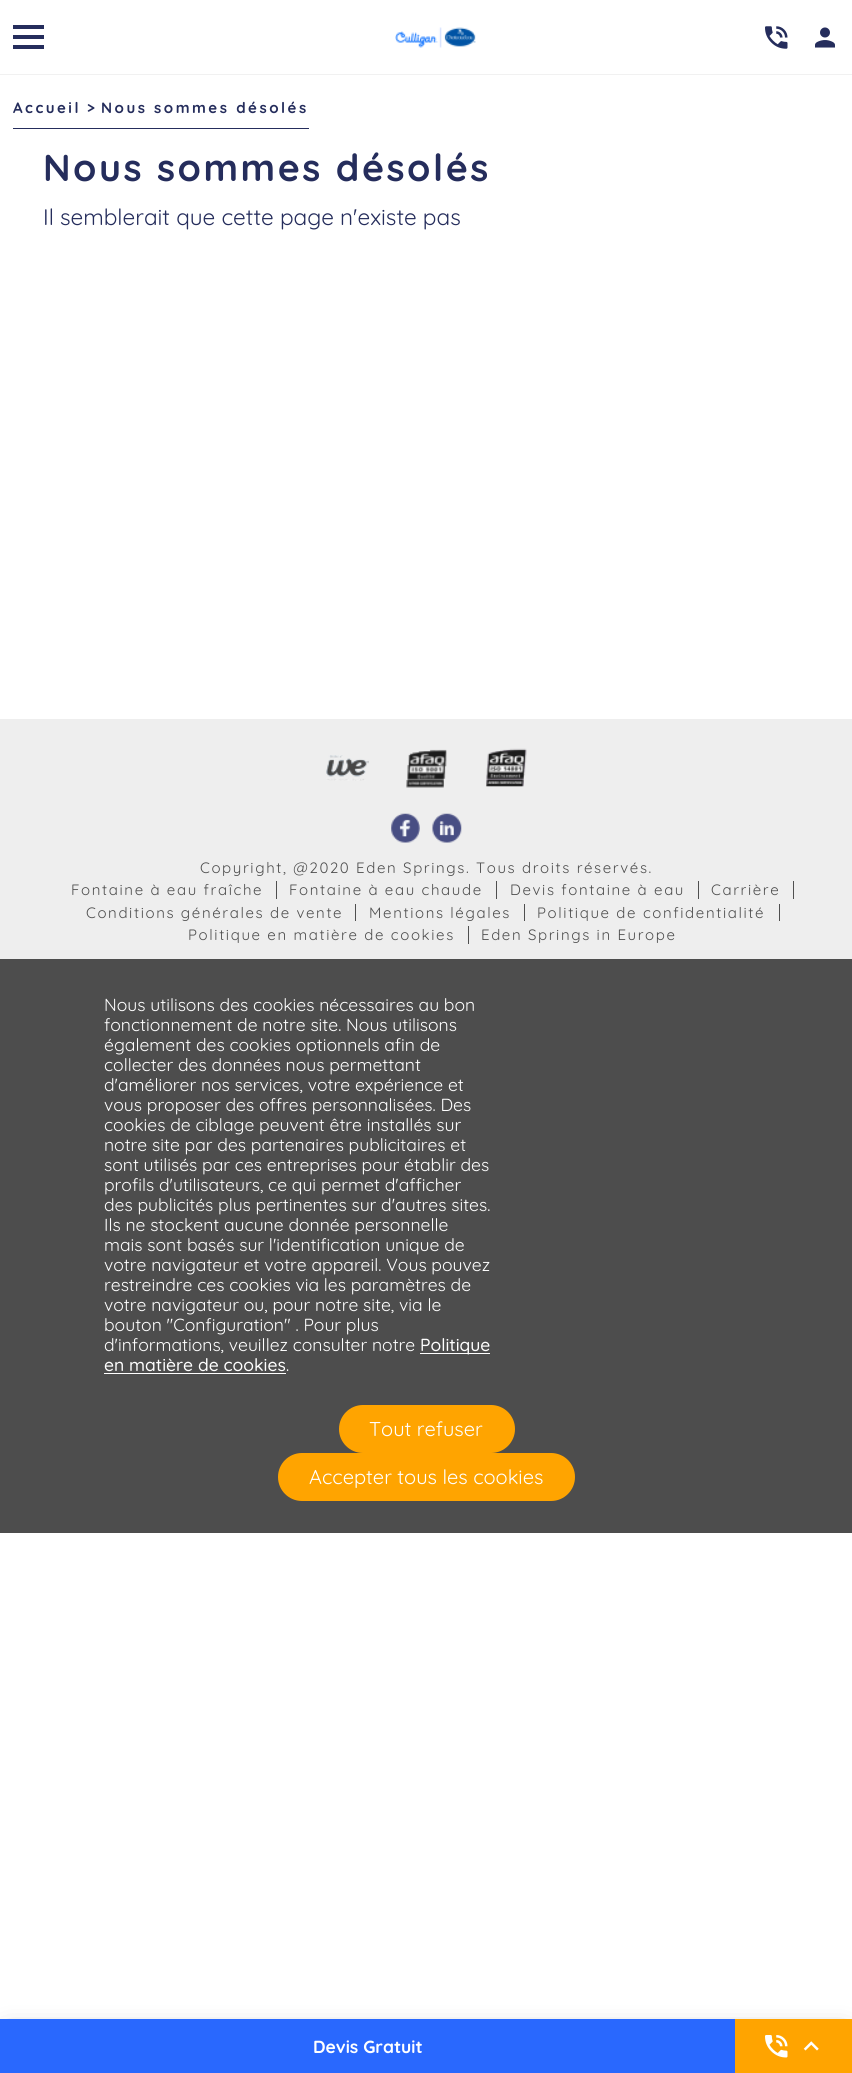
#include <cairo.h>
#include <math.h>
#include <stddef.h>


static void spaced_text(cairo_t *cr, double x, double y, const char *s, double letter, double word) {
    cairo_move_to(cr, x, y);
    while (*s) {
        char ch[5] = {0};
        int n = 0;
        do ch[n++] = *s++; while ((*s & 0xC0) == 0x80);
        cairo_show_text(cr, ch);
        cairo_rel_move_to(cr, letter + word * (*ch == ' '), 0);
    }
}

static void round_rect(cairo_t *cr, double x, double y, double w, double h, double r) {
    cairo_new_sub_path(cr);
    cairo_arc(cr, x + w - r, y + h - r, r, 0, M_PI / 2);
    cairo_arc(cr, x + r, y + h - r, r, M_PI / 2, M_PI);
    cairo_arc(cr, x + r, y + r, r, M_PI, 1.5 * M_PI);
    cairo_arc(cr, x + w - r, y + r, r, 1.5 * M_PI, 2 * M_PI);
    cairo_close_path(cr);
}

static void shadow(cairo_t *cr, double x, double y, double w, double h, double r, double blur, double alpha) {
    cairo_push_group_with_content(cr, CAIRO_CONTENT_ALPHA);
    cairo_set_operator(cr, CAIRO_OPERATOR_SOURCE);
    for (int i = 15; i >= -15 && fmin(w, h) + blur * i / 3 > 0; i -= 2) {
        double e = blur * i / 6;
        cairo_set_source_rgba(cr, 0, 0, 0, alpha * erfc((i - 1) / 8.5) / 2);
        round_rect(cr, x - e, y - e, w + 2 * e, h + 2 * e, fmax(0, fmin(r + e + blur * .6, fmin(w, h) / 2 + e)));
        cairo_fill(cr);
    }
    cairo_pattern_t *soft = cairo_pop_group(cr);
    cairo_mask(cr, soft);
    cairo_pattern_destroy(soft);
}

static void picture(cairo_t *cr, const char *path, double x, double y, double w, double h) {
    cairo_surface_t *image = cairo_image_surface_create_from_png(path);
    cairo_save(cr);
    cairo_set_source_surface(cr, image, x, y);
    cairo_rectangle(cr, x, y, w, h);
    cairo_fill(cr);
    cairo_restore(cr);
    cairo_surface_destroy(image);
}

int main(void) {
    cairo_surface_t *surface = cairo_image_surface_create(CAIRO_FORMAT_RGB24, 852, 2073);
    cairo_t *cr = cairo_create(surface);
    cairo_font_options_t *options = cairo_font_options_create();
    cairo_font_options_set_hint_metrics(options, CAIRO_HINT_METRICS_OFF);
    cairo_font_options_set_hint_style(options, CAIRO_HINT_STYLE_NONE);
    cairo_set_font_options(cr, options);
    cairo_set_miter_limit(cr, 4);
    cairo_set_source_rgb(cr, 1, 1, 1);
    cairo_paint(cr);
    cairo_set_source_rgb(cr, 0.145, 0.176, 0.361);
    cairo_rectangle(cr, 13, 128, 296, 1);
    cairo_fill(cr);
    cairo_select_font_face(cr, "Quicksand", CAIRO_FONT_SLANT_NORMAL, CAIRO_FONT_WEIGHT_BOLD);
    cairo_set_font_size(cr, 15);
    spaced_text(cr, 13, 113, "Accueil", 2.5, 0);
    cairo_move_to(cr, 87, 113);
    cairo_show_text(cr, ">");
    spaced_text(cr, 101, 113, "Nous sommes désolés", 2.5, 0);
    cairo_set_font_size(cr, 37.5);
    spaced_text(cr, 43, 181, "Nous sommes désolés", 2.5, 0);
    cairo_select_font_face(cr, "Quicksand", CAIRO_FONT_SLANT_NORMAL, CAIRO_FONT_WEIGHT_NORMAL);
    cairo_set_font_size(cr, 22.5);
    cairo_move_to(cr, 43, 225);
    cairo_show_text(cr, "Il semblerait que cette page n'existe pas");
    cairo_set_source_rgb(cr, 0.933, 0.933, 0.933);
    cairo_rectangle(cr, 0, 719, 852, 240);
    cairo_fill(cr);
    picture(cr, "img1.png", 326, 755, 43, 26);
    picture(cr, "img2.png", 406, 749, 41, 39);
    picture(cr, "img3.png", 486, 748, 41, 39);
    picture(cr, "img4.png", 391, 813, 29, 30);
    picture(cr, "img5.png", 432, 813, 30, 30);
    cairo_set_font_size(cr, 15);
    cairo_set_source_rgb(cr, 0.31, 0.31, 0.31);
    spaced_text(cr, 200, 873, "Copyright, @2020 Eden Springs. Tous droits réservés.", 1.62, 0);
    cairo_rectangle(cr, 276, 881, 1, 18);
    cairo_fill(cr);
    spaced_text(cr, 71, 895, "Fontaine à eau fraîche", 1.62, 0);
    cairo_rectangle(cr, 496, 881, 1, 18);
    cairo_fill(cr);
    spaced_text(cr, 289, 895, "Fontaine à eau chaude", 1.62, 0);
    cairo_rectangle(cr, 698, 881, 1, 18);
    cairo_fill(cr);
    spaced_text(cr, 510, 895, "Devis fontaine à eau", 1.62, 0);
    cairo_rectangle(cr, 793, 881, 1, 18);
    cairo_fill(cr);
    spaced_text(cr, 711, 895, "Carrière", 1.62, 0);
    cairo_rectangle(cr, 355, 904, 1, 17);
    cairo_fill(cr);
    spaced_text(cr, 86, 918, "Conditions générales de vente", 1.62, 0);
    cairo_rectangle(cr, 524, 904, 1, 17);
    cairo_fill(cr);
    spaced_text(cr, 369, 918, "Mentions légales", 1.62, 0);
    cairo_rectangle(cr, 779, 904, 1, 17);
    cairo_fill(cr);
    spaced_text(cr, 537, 918, "Politique de confidentialité", 1.62, 0);
    cairo_rectangle(cr, 468, 926, 1, 18);
    cairo_fill(cr);
    spaced_text(cr, 188, 940, "Politique en matière de cookies", 1.62, 0);
    spaced_text(cr, 481, 940, "Eden Springs in Europe", 1.62, 0);
    cairo_set_source_rgb(cr, 0.302, 0.302, 0.302);
    cairo_rectangle(cr, 0, 959, 852, 574);
    cairo_fill(cr);
    cairo_set_font_size(cr, 17.5);
    cairo_set_source_rgb(cr, 1, 1, 1);
    cairo_move_to(cr, 104, 1011);
    cairo_show_text(cr, "Nous utilisons des cookies nécessaires au bon");
    cairo_move_to(cr, 104, 1031);
    cairo_show_text(cr, "fonctionnement de notre site. Nous utilisons");
    cairo_move_to(cr, 104, 1051);
    cairo_show_text(cr, "également des cookies optionnels afin de");
    cairo_move_to(cr, 104, 1071);
    cairo_show_text(cr, "collecter des données nous permettant");
    cairo_move_to(cr, 104, 1091);
    cairo_show_text(cr, "d'améliorer nos services, votre expérience et");
    cairo_move_to(cr, 104, 1111);
    cairo_show_text(cr, "vous proposer des offres personnalisées. Des");
    cairo_move_to(cr, 104, 1131);
    cairo_show_text(cr, "cookies de ciblage peuvent être installés sur");
    cairo_move_to(cr, 104, 1151);
    cairo_show_text(cr, "notre site par des partenaires publicitaires et");
    cairo_move_to(cr, 104, 1171);
    cairo_show_text(cr, "sont utilisés par ces entreprises pour établir des");
    cairo_move_to(cr, 104, 1191);
    cairo_show_text(cr, "profils d'utilisateurs, ce qui permet d'afficher");
    cairo_move_to(cr, 104, 1211);
    cairo_show_text(cr, "des publicités plus pertinentes sur d'autres sites.");
    cairo_move_to(cr, 104, 1231);
    cairo_show_text(cr, "Ils ne stockent aucune donnée personnelle");
    cairo_move_to(cr, 104, 1251);
    cairo_show_text(cr, "mais sont basés sur l'identification unique de");
    cairo_move_to(cr, 104, 1271);
    cairo_show_text(cr, "votre navigateur et votre appareil. Vous pouvez");
    cairo_move_to(cr, 104, 1291);
    cairo_show_text(cr, "restreindre ces cookies via les paramètres de");
    cairo_move_to(cr, 104, 1311);
    cairo_show_text(cr, "votre navigateur ou, pour notre site, via le");
    cairo_move_to(cr, 104, 1331);
    cairo_show_text(cr, "bouton \"Configuration\" . Pour plus");
    cairo_move_to(cr, 104, 1351);
    cairo_show_text(cr, "d'informations, veuillez consulter notre");
    cairo_rectangle(cr, 420, 1353, 70, 1);
    cairo_fill(cr);
    cairo_select_font_face(cr, "Quicksand Medium", CAIRO_FONT_SLANT_NORMAL, CAIRO_FONT_WEIGHT_NORMAL);
    cairo_move_to(cr, 420, 1351);
    cairo_show_text(cr, "Politique");
    cairo_move_to(cr, 104, 1371);
    cairo_show_text(cr, "en matière de cookies");
    cairo_rectangle(cr, 104, 1373, 182, 1);
    cairo_fill(cr);
    cairo_select_font_face(cr, "Quicksand", CAIRO_FONT_SLANT_NORMAL, CAIRO_FONT_WEIGHT_NORMAL);
    cairo_move_to(cr, 286, 1371);
    cairo_show_text(cr, ".");
    cairo_set_source_rgb(cr, 1, 0.643, 0);
    round_rect(cr, 339, 1405, 176, 48, 24);
    cairo_fill(cr);
    cairo_set_font_size(cr, 20);
    cairo_set_source_rgb(cr, 1, 1, 1);
    cairo_move_to(cr, 369, 1436);
    cairo_show_text(cr, "Tout refuser");
    cairo_set_source_rgb(cr, 1, 0.643, 0);
    round_rect(cr, 278, 1453, 297, 48, 24);
    cairo_fill(cr);
    cairo_set_source_rgb(cr, 1, 1, 1);
    cairo_move_to(cr, 309, 1484);
    cairo_show_text(cr, "Accepter tous les cookies");
    cairo_set_source_rgb(cr, 0.945, 0.945, 0.945);
    cairo_rectangle(cr, 0, 74, 852, 1);
    cairo_fill(cr);
    cairo_set_source_rgb(cr, 0.145, 0.176, 0.361);
    cairo_rectangle(cr, 13, 35, 31, 4);
    cairo_fill(cr);
    cairo_rectangle(cr, 13, 25, 31, 4);
    cairo_fill(cr);
    cairo_rectangle(cr, 13, 45, 31, 4);
    cairo_fill(cr);
    picture(cr, "img6.png", 395, 27, 81, 21);
    picture(cr, "img7.png", 765, 26, 23, 23);
    picture(cr, "img8.png", 815, 27, 20, 21);
    cairo_set_source_rgb(cr, 0, 0, 0);
    shadow(cr, 8, 2036, 837, 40, 0, 12.5, 0.56);
    cairo_set_source_rgb(cr, 0.161, 0.408, 0.996);
    cairo_rectangle(cr, 0, 2019, 735, 54);
    cairo_fill(cr);
    cairo_select_font_face(cr, "Quicksand", CAIRO_FONT_SLANT_NORMAL, CAIRO_FONT_WEIGHT_BOLD);
    cairo_set_font_size(cr, 17.5);
    cairo_set_source_rgb(cr, 1, 1, 1);
    cairo_move_to(cr, 313, 2053);
    cairo_show_text(cr, "Devis Gratuit");
    cairo_set_source_rgb(cr, 1, 0.643, 0);
    cairo_rectangle(cr, 735, 2019, 117, 54);
    cairo_fill(cr);
    picture(cr, "img9.png", 765, 2035, 23, 23);
    picture(cr, "img10.png", 803, 2041, 16, 10);
    cairo_surface_write_to_png(surface, "page.png");
    cairo_font_options_destroy(options);
    cairo_destroy(cr);
    cairo_surface_destroy(surface);
    return 0;
}
